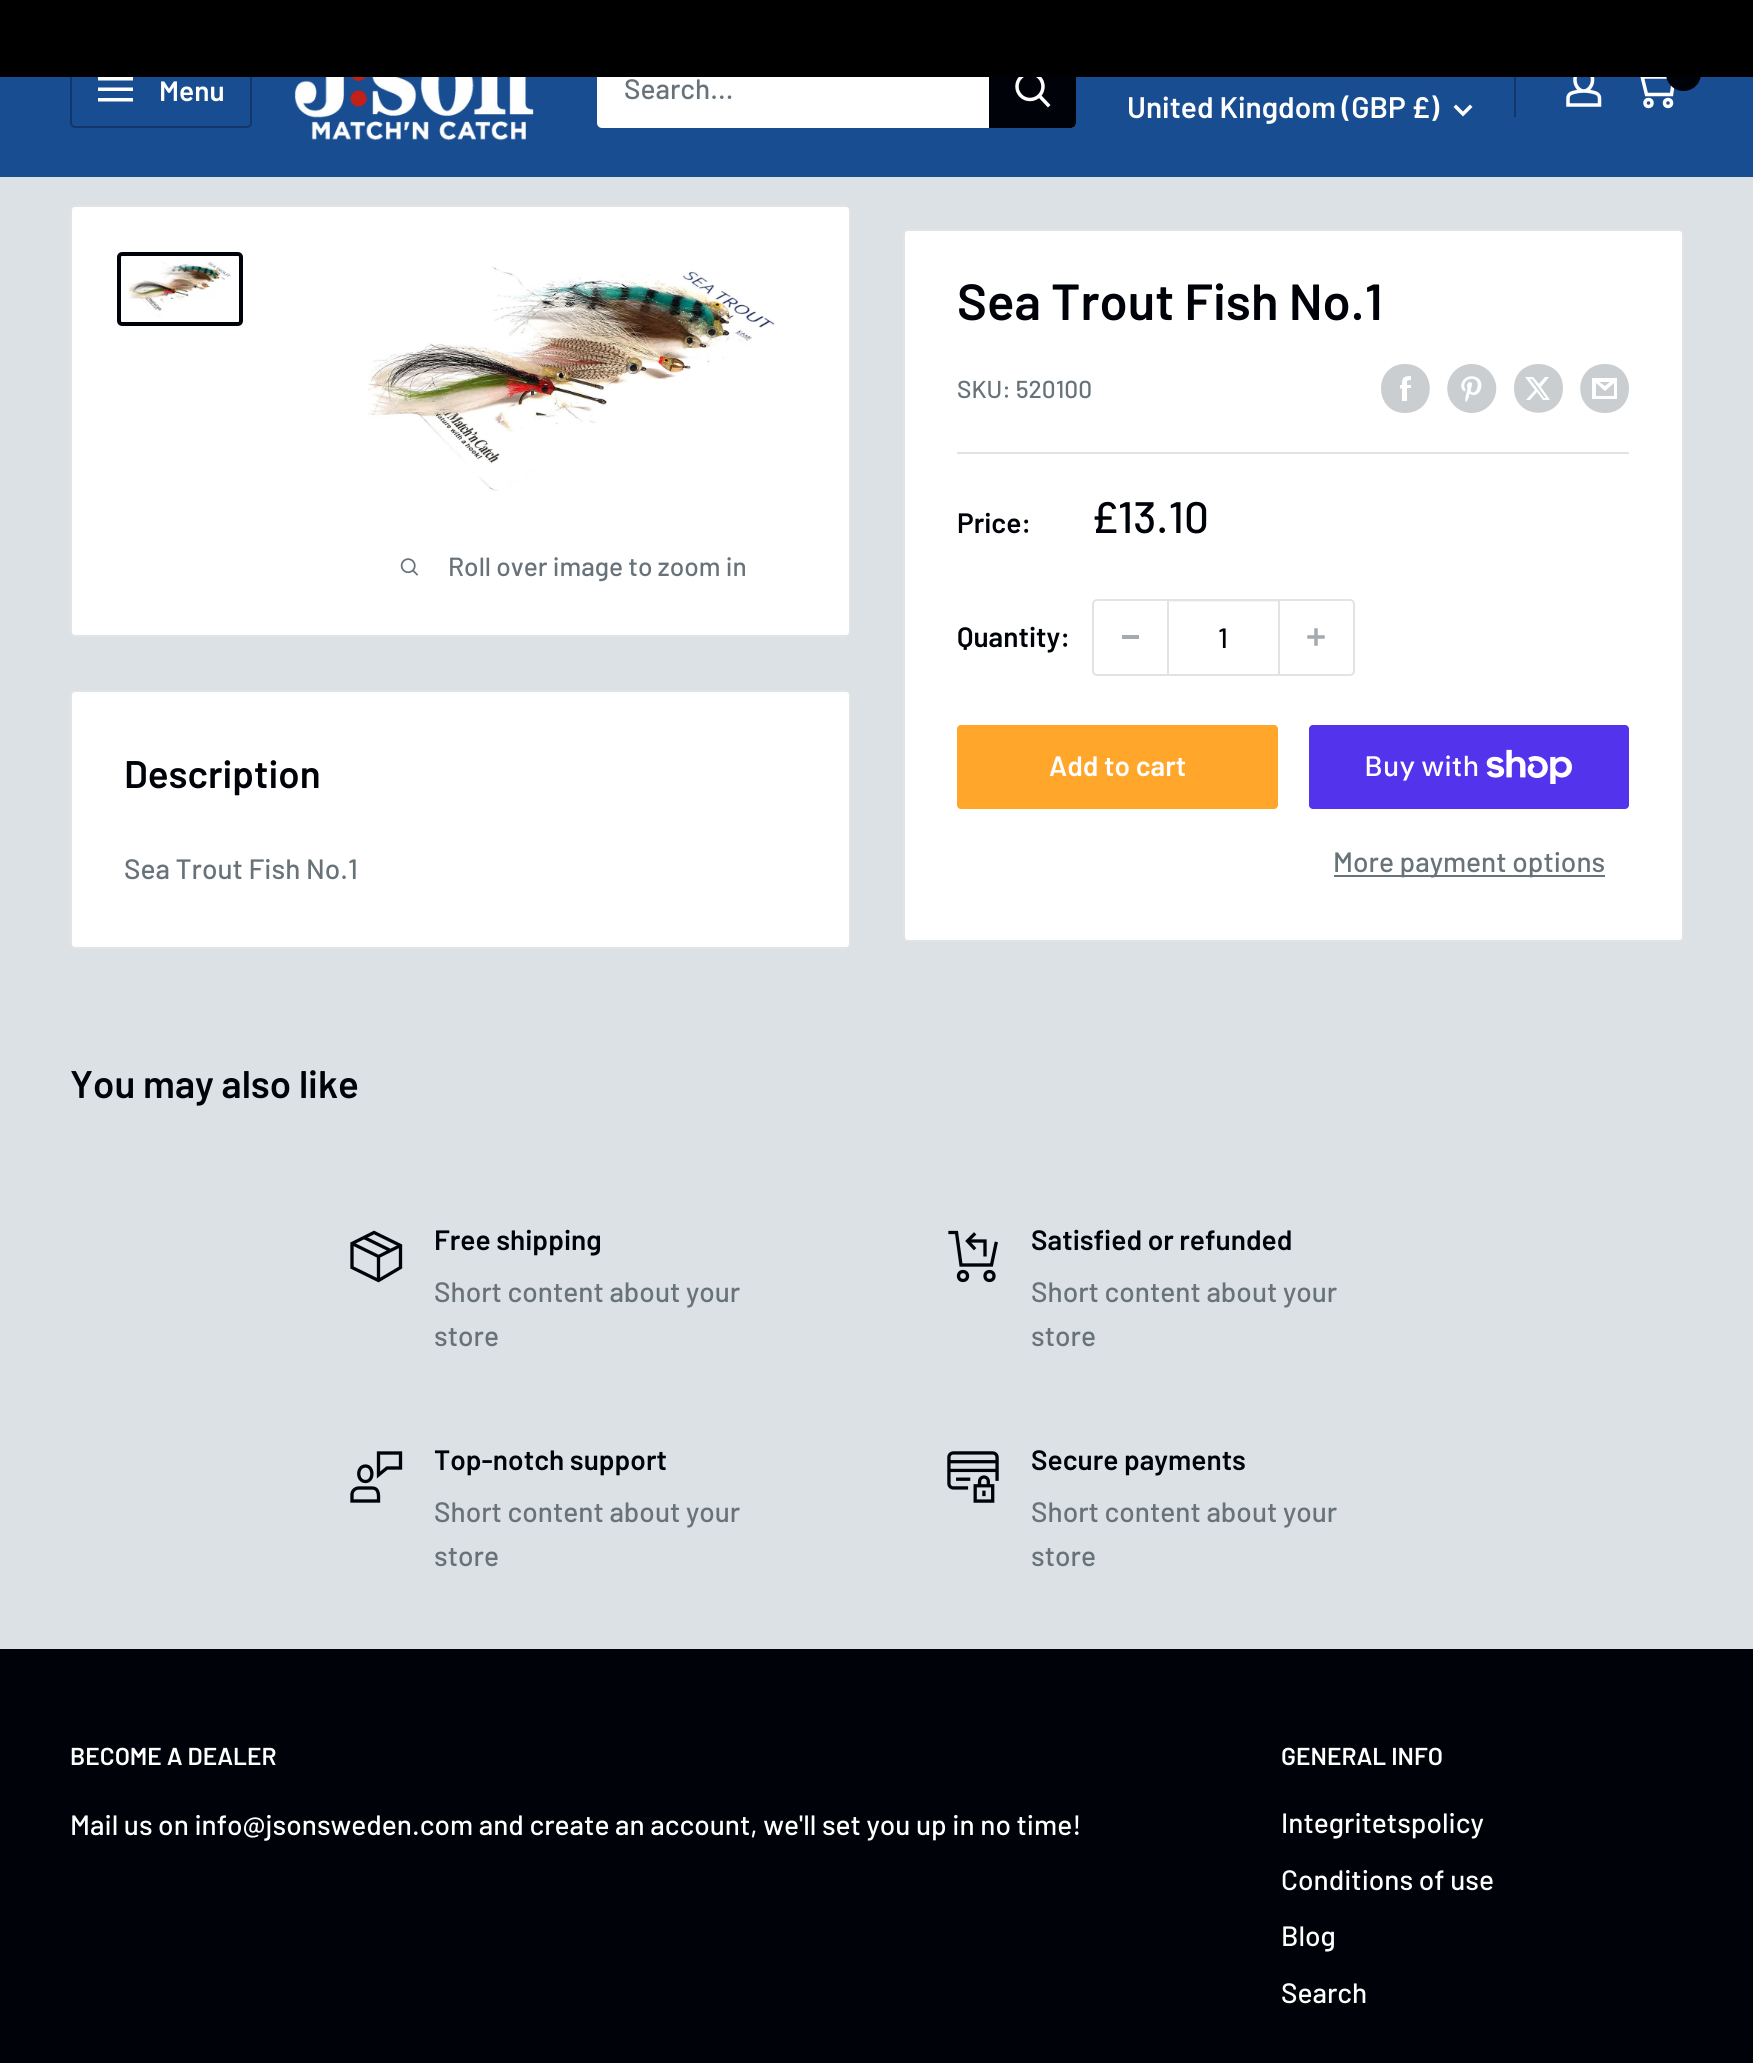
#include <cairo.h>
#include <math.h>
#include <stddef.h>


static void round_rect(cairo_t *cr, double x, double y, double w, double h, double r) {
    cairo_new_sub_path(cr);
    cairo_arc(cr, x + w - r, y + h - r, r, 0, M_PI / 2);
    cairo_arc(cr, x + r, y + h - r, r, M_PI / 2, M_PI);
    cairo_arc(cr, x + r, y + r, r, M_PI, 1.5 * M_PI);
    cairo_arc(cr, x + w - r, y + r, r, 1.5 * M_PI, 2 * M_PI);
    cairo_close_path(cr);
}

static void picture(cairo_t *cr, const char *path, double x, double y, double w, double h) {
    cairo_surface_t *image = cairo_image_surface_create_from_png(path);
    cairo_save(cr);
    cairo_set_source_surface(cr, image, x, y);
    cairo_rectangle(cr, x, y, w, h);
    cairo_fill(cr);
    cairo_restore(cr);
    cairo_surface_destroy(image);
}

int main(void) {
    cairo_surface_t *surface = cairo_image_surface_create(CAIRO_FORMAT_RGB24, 1753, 2063);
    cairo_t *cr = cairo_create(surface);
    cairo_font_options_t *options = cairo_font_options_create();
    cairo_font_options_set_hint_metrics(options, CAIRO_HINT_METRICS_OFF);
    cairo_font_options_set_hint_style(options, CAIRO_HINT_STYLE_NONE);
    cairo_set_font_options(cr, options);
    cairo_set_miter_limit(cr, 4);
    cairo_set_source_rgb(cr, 0.859, 0.882, 0.894);
    cairo_paint(cr);
    cairo_set_source_rgb(cr, 0.094, 0.302, 0.569);
    cairo_rectangle(cr, 0, 77, 1753, 100);
    cairo_fill(cr);
    round_rect(cr, 71, 52, 180, 75, 4);
    cairo_set_source_rgb(cr, 0.067, 0.212, 0.412);
    cairo_stroke(cr);
    cairo_set_source_rgb(cr, 1, 1, 1);
    round_rect(cr, 597, 51, 479, 77, 5);
    cairo_fill(cr);
    cairo_set_source_rgb(cr, 0, 0.008, 0.039);
    cairo_new_path(cr);
    cairo_move_to(cr, 989, 51);
    cairo_line_to(cr, 1071, 51);
    cairo_curve_to(cr, 1074, 51, 1076, 53, 1076, 56);
    cairo_line_to(cr, 1076, 123);
    cairo_curve_to(cr, 1076, 126, 1074, 128, 1071, 128);
    cairo_line_to(cr, 989, 128);
    cairo_close_path(cr);
    cairo_fill(cr);
    cairo_new_path(cr);
    cairo_move_to(cr, 1048, 105);
    cairo_line_to(cr, 1039.5, 96);
    cairo_set_source_rgb(cr, 1, 1, 1);
    cairo_set_line_width(cr, 3.5);
    cairo_set_line_cap(cr, CAIRO_LINE_CAP_SQUARE);
    cairo_stroke(cr);
    cairo_arc(cr, 1030, 86.5, 13, 0, 2 * M_PI);
    cairo_set_line_cap(cr, CAIRO_LINE_CAP_BUTT);
    cairo_stroke(cr);
    cairo_new_path(cr);
    cairo_move_to(cr, 1642, 77);
    cairo_line_to(cr, 1674, 77);
    cairo_line_to(cr, 1671.5, 94.5);
    cairo_line_to(cr, 1646.5, 94.5);
    cairo_line_to(cr, 1640, 68);
    cairo_line_to(cr, 1629, 68);
    cairo_stroke(cr);
    cairo_set_source_rgb(cr, 0, 0.008, 0.039);
    round_rect(cr, 1666, 54, 35, 37, 17.5);
    cairo_fill(cr);
    cairo_set_source_rgb(cr, 0, 0, 0);
    cairo_rectangle(cr, 0, 0, 1753, 77);
    cairo_fill(cr);
    cairo_set_source_rgb(cr, 1, 1, 1);
    cairo_set_fill_rule(cr, CAIRO_FILL_RULE_EVEN_ODD);
    cairo_new_path(cr);
    cairo_move_to(cr, 98, 98);
    cairo_line_to(cr, 133, 98);
    cairo_line_to(cr, 133, 101.5);
    cairo_line_to(cr, 98, 101.5);
    cairo_close_path(cr);
    cairo_move_to(cr, 98, 77);
    cairo_line_to(cr, 133, 77);
    cairo_line_to(cr, 133, 80.5);
    cairo_line_to(cr, 98, 80.5);
    cairo_close_path(cr);
    cairo_move_to(cr, 98, 87.5);
    cairo_line_to(cr, 133, 87.5);
    cairo_line_to(cr, 133, 91);
    cairo_line_to(cr, 98, 91);
    cairo_close_path(cr);
    cairo_fill(cr);
    cairo_select_font_face(cr, "Barlow SemiBold", CAIRO_FONT_SLANT_NORMAL, CAIRO_FONT_WEIGHT_NORMAL);
    cairo_set_font_size(cr, 28);
    cairo_move_to(cr, 159, 101);
    cairo_show_text(cr, "Menu");
    picture(cr, "img1.png", 294, 77, 240, 64);
    cairo_select_font_face(cr, "Barlow Medium", CAIRO_FONT_SLANT_NORMAL, CAIRO_FONT_WEIGHT_NORMAL);
    cairo_set_source_rgb(cr, 0.404, 0.447, 0.475);
    cairo_move_to(cr, 624, 99);
    cairo_show_text(cr, "Search...");
    cairo_select_font_face(cr, "Barlow SemiBold", CAIRO_FONT_SLANT_NORMAL, CAIRO_FONT_WEIGHT_NORMAL);
    cairo_set_font_size(cr, 29.75);
    cairo_set_source_rgb(cr, 1, 1, 1);
    cairo_move_to(cr, 1127, 118);
    cairo_show_text(cr, "United Kingdom (GBP £)");
    cairo_new_path(cr);
    cairo_move_to(cr, 1470, 107);
    cairo_line_to(cr, 1463, 114);
    cairo_line_to(cr, 1456, 107);
    cairo_set_line_cap(cr, CAIRO_LINE_CAP_SQUARE);
    cairo_stroke(cr);
    cairo_set_source_rgb(cr, 0.067, 0.212, 0.412);
    cairo_rectangle(cr, 1514, 77, 2, 40);
    cairo_fill(cr);
    picture(cr, "img2.png", 1566, 77, 36, 30);
    cairo_arc(cr, 1648.5, 103, 3.5, 0, 2 * M_PI);
    cairo_set_source_rgb(cr, 1, 1, 1);
    cairo_set_line_cap(cr, CAIRO_LINE_CAP_BUTT);
    cairo_stroke(cr);
    cairo_arc(cr, 1668, 103, 3.5, 0, 2 * M_PI);
    cairo_stroke(cr);
    round_rect(cr, 71, 206, 779, 430, 4);
    cairo_fill_preserve(cr);
    cairo_set_source_rgb(cr, 0.882, 0.89, 0.894);
    cairo_set_line_width(cr, 2);
    cairo_stroke(cr);
    round_rect(cr, 119, 254, 122, 70, 3);
    cairo_set_source_rgb(cr, 0, 0.008, 0.039);
    cairo_set_line_width(cr, 4);
    cairo_stroke(cr);
    picture(cr, "img3.png", 128, 261, 103, 57);
    picture(cr, "img4.png", 367, 266, 408, 225);
    picture(cr, "img5.png", 400, 558, 19, 18);
    cairo_select_font_face(cr, "Barlow Medium", CAIRO_FONT_SLANT_NORMAL, CAIRO_FONT_WEIGHT_NORMAL);
    cairo_set_font_size(cr, 26.25);
    cairo_set_source_rgb(cr, 0.404, 0.447, 0.475);
    cairo_move_to(cr, 448, 576);
    cairo_show_text(cr, "Roll over image to zoom in");
    cairo_set_source_rgb(cr, 1, 1, 1);
    round_rect(cr, 904, 230, 779, 711, 4);
    cairo_fill_preserve(cr);
    cairo_set_source_rgb(cr, 0.882, 0.89, 0.894);
    cairo_set_line_width(cr, 2);
    cairo_stroke(cr);
    cairo_select_font_face(cr, "Barlow SemiBold", CAIRO_FONT_SLANT_NORMAL, CAIRO_FONT_WEIGHT_NORMAL);
    cairo_set_font_size(cr, 50.75);
    cairo_set_source_rgb(cr, 0, 0.008, 0.039);
    cairo_move_to(cr, 957, 320);
    cairo_show_text(cr, "Sea Trout Fish No.1");
    cairo_select_font_face(cr, "Barlow Medium", CAIRO_FONT_SLANT_NORMAL, CAIRO_FONT_WEIGHT_NORMAL);
    cairo_set_font_size(cr, 24.5);
    cairo_set_source_rgb(cr, 0.404, 0.447, 0.475);
    cairo_move_to(cr, 957, 398);
    cairo_show_text(cr, "SKU: 520100");
    cairo_set_source_rgb(cr, 0.792, 0.808, 0.816);
    cairo_new_path(cr);
    cairo_move_to(cr, 1405, 413);
    cairo_curve_to(cr, 1373, 413, 1373, 364, 1405, 364);
    cairo_curve_to(cr, 1438, 364, 1438, 413, 1405, 413);
    cairo_close_path(cr);
    cairo_move_to(cr, 1411, 385);
    cairo_line_to(cr, 1407, 385);
    cairo_curve_to(cr, 1407, 381, 1406, 380, 1411, 380);
    cairo_line_to(cr, 1411, 376);
    cairo_curve_to(cr, 1403, 376, 1402, 378, 1402, 385);
    cairo_line_to(cr, 1400, 385);
    cairo_line_to(cr, 1400, 389);
    cairo_line_to(cr, 1402, 388);
    cairo_line_to(cr, 1402, 401);
    cairo_line_to(cr, 1407, 401);
    cairo_line_to(cr, 1407, 388);
    cairo_line_to(cr, 1411, 388);
    cairo_close_path(cr);
    cairo_fill(cr);
    picture(cr, "img6.png", 1447, 364, 50, 49);
    cairo_new_path(cr);
    cairo_move_to(cr, 1563, 388);
    cairo_curve_to(cr, 1563, 421, 1514, 421, 1514, 388);
    cairo_curve_to(cr, 1514, 356, 1563, 356, 1563, 388);
    cairo_close_path(cr);
    cairo_move_to(cr, 1549, 377);
    cairo_line_to(cr, 1545, 377);
    cairo_line_to(cr, 1539, 384);
    cairo_line_to(cr, 1533, 377);
    cairo_line_to(cr, 1525, 377);
    cairo_line_to(cr, 1535, 390);
    cairo_line_to(cr, 1526, 400);
    cairo_line_to(cr, 1530, 400);
    cairo_line_to(cr, 1537, 392);
    cairo_line_to(cr, 1543, 400);
    cairo_line_to(cr, 1550, 400);
    cairo_line_to(cr, 1541, 387);
    cairo_close_path(cr);
    cairo_move_to(cr, 1546, 398);
    cairo_line_to(cr, 1544, 398);
    cairo_line_to(cr, 1530, 379);
    cairo_line_to(cr, 1532, 379);
    cairo_close_path(cr);
    cairo_fill(cr);
    cairo_set_fill_rule(cr, CAIRO_FILL_RULE_WINDING);
    cairo_new_path(cr);
    cairo_move_to(cr, 1605, 413);
    cairo_curve_to(cr, 1572, 413, 1572, 364, 1605, 364);
    cairo_curve_to(cr, 1637, 364, 1637, 413, 1605, 413);
    cairo_close_path(cr);
    cairo_move_to(cr, 1599, 382);
    cairo_line_to(cr, 1610, 382);
    cairo_line_to(cr, 1605, 386);
    cairo_close_path(cr);
    cairo_move_to(cr, 1614, 383);
    cairo_line_to(cr, 1614, 396);
    cairo_line_to(cr, 1596, 396);
    cairo_line_to(cr, 1596, 383);
    cairo_line_to(cr, 1605, 391);
    cairo_close_path(cr);
    cairo_move_to(cr, 1617, 378);
    cairo_line_to(cr, 1592, 378);
    cairo_line_to(cr, 1592, 399);
    cairo_line_to(cr, 1617, 399);
    cairo_close_path(cr);
    cairo_fill(cr);
    cairo_set_source_rgb(cr, 0.882, 0.89, 0.894);
    cairo_rectangle(cr, 957, 452, 672, 2);
    cairo_fill(cr);
    cairo_select_font_face(cr, "Barlow SemiBold", CAIRO_FONT_SLANT_NORMAL, CAIRO_FONT_WEIGHT_NORMAL);
    cairo_set_font_size(cr, 28);
    cairo_set_source_rgb(cr, 0, 0.008, 0.039);
    cairo_move_to(cr, 957, 533);
    cairo_show_text(cr, "Price:");
    cairo_select_font_face(cr, "Barlow Medium", CAIRO_FONT_SLANT_NORMAL, CAIRO_FONT_WEIGHT_NORMAL);
    cairo_set_font_size(cr, 44);
    cairo_move_to(cr, 1091, 533);
    cairo_show_text(cr, "£13.10");
    cairo_select_font_face(cr, "Barlow SemiBold", CAIRO_FONT_SLANT_NORMAL, CAIRO_FONT_WEIGHT_NORMAL);
    cairo_set_font_size(cr, 28);
    cairo_move_to(cr, 957, 647);
    cairo_show_text(cr, "Quantity:");
    round_rect(cr, 1093, 600, 261, 75, 4);
    cairo_set_source_rgb(cr, 0.882, 0.89, 0.894);
    cairo_stroke(cr);
    cairo_set_source_rgb(cr, 0.643, 0.667, 0.686);
    cairo_rectangle(cr, 1122, 635, 17, 4);
    cairo_fill(cr);
    cairo_set_source_rgba(cr, 0.882, 0.89, 0.894, 0.4);
    cairo_rectangle(cr, 1169, 601, 109, 1);
    cairo_fill(cr);
    cairo_set_source_rgb(cr, 0.882, 0.89, 0.894);
    cairo_rectangle(cr, 1278, 600, 2, 74);
    cairo_fill(cr);
    cairo_rectangle(cr, 1167, 600, 2, 74);
    cairo_fill(cr);
    cairo_select_font_face(cr, "Barlow Medium", CAIRO_FONT_SLANT_NORMAL, CAIRO_FONT_WEIGHT_NORMAL);
    cairo_set_source_rgb(cr, 0, 0.008, 0.039);
    cairo_move_to(cr, 1218, 648);
    cairo_show_text(cr, "1");
    picture(cr, "img7.png", 1307, 628, 18, 18);
    cairo_set_source_rgb(cr, 1, 0.651, 0.169);
    round_rect(cr, 957, 725, 321, 84, 4);
    cairo_fill(cr);
    cairo_select_font_face(cr, "Barlow SemiBold", CAIRO_FONT_SLANT_NORMAL, CAIRO_FONT_WEIGHT_NORMAL);
    cairo_set_source_rgb(cr, 1, 1, 1);
    cairo_move_to(cr, 1049, 776);
    cairo_show_text(cr, "Add to cart");
    cairo_set_source_rgb(cr, 0.329, 0.2, 0.922);
    round_rect(cr, 1309, 725, 320, 84, 4);
    cairo_fill(cr);
    cairo_select_font_face(cr, "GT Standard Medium", CAIRO_FONT_SLANT_NORMAL, CAIRO_FONT_WEIGHT_NORMAL);
    cairo_set_source_rgb(cr, 1, 1, 1);
    cairo_move_to(cr, 1364, 776);
    cairo_show_text(cr, "Buy with");
    picture(cr, "img8.png", 1486, 749, 86, 35);
    cairo_set_source_rgb(cr, 0.404, 0.447, 0.475);
    cairo_rectangle(cr, 1334, 875, 271, 2);
    cairo_fill(cr);
    cairo_select_font_face(cr, "Barlow Medium", CAIRO_FONT_SLANT_NORMAL, CAIRO_FONT_WEIGHT_NORMAL);
    cairo_move_to(cr, 1333, 872);
    cairo_show_text(cr, "More payment options");
    cairo_set_source_rgb(cr, 1, 1, 1);
    round_rect(cr, 71, 691, 779, 257, 4);
    cairo_fill_preserve(cr);
    cairo_set_source_rgb(cr, 0.882, 0.89, 0.894);
    cairo_stroke(cr);
    cairo_select_font_face(cr, "Barlow SemiBold", CAIRO_FONT_SLANT_NORMAL, CAIRO_FONT_WEIGHT_NORMAL);
    cairo_set_font_size(cr, 38.5);
    cairo_set_source_rgb(cr, 0, 0.008, 0.039);
    cairo_move_to(cr, 124, 788);
    cairo_show_text(cr, "Description");
    cairo_select_font_face(cr, "Barlow Medium", CAIRO_FONT_SLANT_NORMAL, CAIRO_FONT_WEIGHT_NORMAL);
    cairo_set_font_size(cr, 28);
    cairo_set_source_rgb(cr, 0.404, 0.447, 0.475);
    cairo_move_to(cr, 124, 879);
    cairo_show_text(cr, "Sea Trout Fish No.1");
    cairo_select_font_face(cr, "Barlow SemiBold", CAIRO_FONT_SLANT_NORMAL, CAIRO_FONT_WEIGHT_NORMAL);
    cairo_set_font_size(cr, 38.5);
    cairo_set_source_rgb(cr, 0, 0.008, 0.039);
    cairo_move_to(cr, 70, 1098);
    cairo_show_text(cr, "You may also like");
    cairo_new_path(cr);
    cairo_move_to(cr, 364, 1237.5);
    cairo_line_to(cr, 390.5, 1250.5);
    cairo_move_to(cr, 400.5, 1245.5);
    cairo_line_to(cr, 378.5, 1256.5);
    cairo_line_to(cr, 352, 1243.5);
    cairo_move_to(cr, 378.5, 1256.5);
    cairo_line_to(cr, 378.5, 1280.5);
    cairo_set_line_width(cr, 3.3);
    cairo_stroke(cr);
    cairo_new_path(cr);
    cairo_move_to(cr, 400.5, 1245.5);
    cairo_line_to(cr, 400.5, 1267.5);
    cairo_line_to(cr, 378.5, 1280.5);
    cairo_line_to(cr, 352, 1267.5);
    cairo_line_to(cr, 352, 1243.5);
    cairo_line_to(cr, 374, 1232.5);
    cairo_close_path(cr);
    cairo_set_line_cap(cr, CAIRO_LINE_CAP_SQUARE);
    cairo_stroke(cr);
    cairo_set_font_size(cr, 28);
    cairo_move_to(cr, 434, 1250);
    cairo_show_text(cr, "Free shipping");
    cairo_select_font_face(cr, "Barlow Medium", CAIRO_FONT_SLANT_NORMAL, CAIRO_FONT_WEIGHT_NORMAL);
    cairo_set_source_rgb(cr, 0.404, 0.447, 0.475);
    cairo_move_to(cr, 434, 1302);
    cairo_show_text(cr, "Short content about your");
    cairo_move_to(cr, 434, 1346);
    cairo_show_text(cr, "store");
    cairo_new_path(cr);
    cairo_move_to(cr, 967.5, 1241);
    cairo_line_to(cr, 985, 1241);
    cairo_line_to(cr, 985, 1256.5);
    cairo_set_source_rgb(cr, 0, 0.008, 0.039);
    cairo_set_line_cap(cr, CAIRO_LINE_CAP_BUTT);
    cairo_stroke(cr);
    cairo_new_path(cr);
    cairo_move_to(cr, 974, 1248);
    cairo_line_to(cr, 967.5, 1241);
    cairo_line_to(cr, 974, 1234.5);
    cairo_set_line_cap(cr, CAIRO_LINE_CAP_SQUARE);
    cairo_stroke(cr);
    cairo_new_path(cr);
    cairo_move_to(cr, 996, 1243.5);
    cairo_line_to(cr, 991.5, 1265);
    cairo_line_to(cr, 961, 1265);
    cairo_line_to(cr, 956.5, 1232.5);
    cairo_line_to(cr, 950, 1232.5);
    cairo_stroke(cr);
    cairo_arc(cr, 963, 1276, 4.5, 0, 2 * M_PI);
    cairo_set_line_cap(cr, CAIRO_LINE_CAP_BUTT);
    cairo_stroke(cr);
    cairo_arc(cr, 989.5, 1276, 4.5, 0, 2 * M_PI);
    cairo_stroke(cr);
    cairo_select_font_face(cr, "Barlow SemiBold", CAIRO_FONT_SLANT_NORMAL, CAIRO_FONT_WEIGHT_NORMAL);
    cairo_move_to(cr, 1031, 1250);
    cairo_show_text(cr, "Satisfied or refunded");
    cairo_select_font_face(cr, "Barlow Medium", CAIRO_FONT_SLANT_NORMAL, CAIRO_FONT_WEIGHT_NORMAL);
    cairo_set_source_rgb(cr, 0.404, 0.447, 0.475);
    cairo_move_to(cr, 1031, 1302);
    cairo_show_text(cr, "Short content about your");
    cairo_move_to(cr, 1031, 1346);
    cairo_show_text(cr, "store");
    cairo_new_path(cr);
    cairo_move_to(cr, 372, 1488);
    cairo_line_to(cr, 359, 1488);
    cairo_curve_to(cr, 355, 1488, 352, 1491, 352, 1494.5);
    cairo_line_to(cr, 352, 1501);
    cairo_line_to(cr, 378.5, 1501);
    cairo_curve_to(cr, 378.5, 1496, 379.5, 1488, 372, 1488);
    cairo_close_path(cr);
    cairo_move_to(cr, 365.5, 1481.5);
    cairo_curve_to(cr, 356.5, 1481.5, 356.5, 1466, 365.5, 1466);
    cairo_curve_to(cr, 374, 1466, 374, 1481.5, 365.5, 1481.5);
    cairo_close_path(cr);
    cairo_move_to(cr, 378.5, 1453);
    cairo_line_to(cr, 378.5, 1475);
    cairo_line_to(cr, 387, 1468);
    cairo_line_to(cr, 400.5, 1468);
    cairo_line_to(cr, 400.5, 1453);
    cairo_close_path(cr);
    cairo_set_source_rgb(cr, 0, 0.008, 0.039);
    cairo_set_line_cap(cr, CAIRO_LINE_CAP_SQUARE);
    cairo_stroke(cr);
    cairo_select_font_face(cr, "Barlow SemiBold", CAIRO_FONT_SLANT_NORMAL, CAIRO_FONT_WEIGHT_NORMAL);
    cairo_move_to(cr, 434, 1470);
    cairo_show_text(cr, "Top-notch support");
    cairo_select_font_face(cr, "Barlow Medium", CAIRO_FONT_SLANT_NORMAL, CAIRO_FONT_WEIGHT_NORMAL);
    cairo_set_source_rgb(cr, 0.404, 0.447, 0.475);
    cairo_move_to(cr, 434, 1522);
    cairo_show_text(cr, "Short content about your");
    cairo_move_to(cr, 434, 1566);
    cairo_show_text(cr, "store");
    picture(cr, "img9.png", 947, 1451, 52, 52);
    cairo_select_font_face(cr, "Barlow SemiBold", CAIRO_FONT_SLANT_NORMAL, CAIRO_FONT_WEIGHT_NORMAL);
    cairo_set_source_rgb(cr, 0, 0.008, 0.039);
    cairo_move_to(cr, 1031, 1470);
    cairo_show_text(cr, "Secure payments");
    cairo_select_font_face(cr, "Barlow Medium", CAIRO_FONT_SLANT_NORMAL, CAIRO_FONT_WEIGHT_NORMAL);
    cairo_set_source_rgb(cr, 0.404, 0.447, 0.475);
    cairo_move_to(cr, 1031, 1522);
    cairo_show_text(cr, "Short content about your");
    cairo_move_to(cr, 1031, 1566);
    cairo_show_text(cr, "store");
    cairo_set_source_rgb(cr, 0, 0.008, 0.039);
    cairo_rectangle(cr, 0, 1649, 1753, 414);
    cairo_fill(cr);
    cairo_select_font_face(cr, "Barlow SemiBold", CAIRO_FONT_SLANT_NORMAL, CAIRO_FONT_WEIGHT_NORMAL);
    cairo_set_font_size(cr, 24.5);
    cairo_set_source_rgb(cr, 1, 1, 1);
    cairo_move_to(cr, 70, 1765);
    cairo_show_text(cr, "BECOME A DEALER");
    cairo_select_font_face(cr, "Barlow Medium", CAIRO_FONT_SLANT_NORMAL, CAIRO_FONT_WEIGHT_NORMAL);
    cairo_set_font_size(cr, 28);
    cairo_move_to(cr, 70, 1835);
    cairo_show_text(cr, "Mail us on info@jsonsweden.com and create an account, we'll set you up in no time!");
    cairo_select_font_face(cr, "Barlow SemiBold", CAIRO_FONT_SLANT_NORMAL, CAIRO_FONT_WEIGHT_NORMAL);
    cairo_set_font_size(cr, 24.5);
    cairo_move_to(cr, 1281, 1765);
    cairo_show_text(cr, "GENERAL INFO");
    cairo_select_font_face(cr, "Barlow Medium", CAIRO_FONT_SLANT_NORMAL, CAIRO_FONT_WEIGHT_NORMAL);
    cairo_set_font_size(cr, 28);
    cairo_move_to(cr, 1281, 1833);
    cairo_show_text(cr, "Integritetspolicy");
    cairo_move_to(cr, 1281, 1890);
    cairo_show_text(cr, "Conditions of use");
    cairo_move_to(cr, 1281, 1946);
    cairo_show_text(cr, "Blog");
    cairo_move_to(cr, 1281, 2003);
    cairo_show_text(cr, "Search");
    cairo_surface_write_to_png(surface, "page.png");
    cairo_font_options_destroy(options);
    cairo_destroy(cr);
    cairo_surface_destroy(surface);
    return 0;
}
